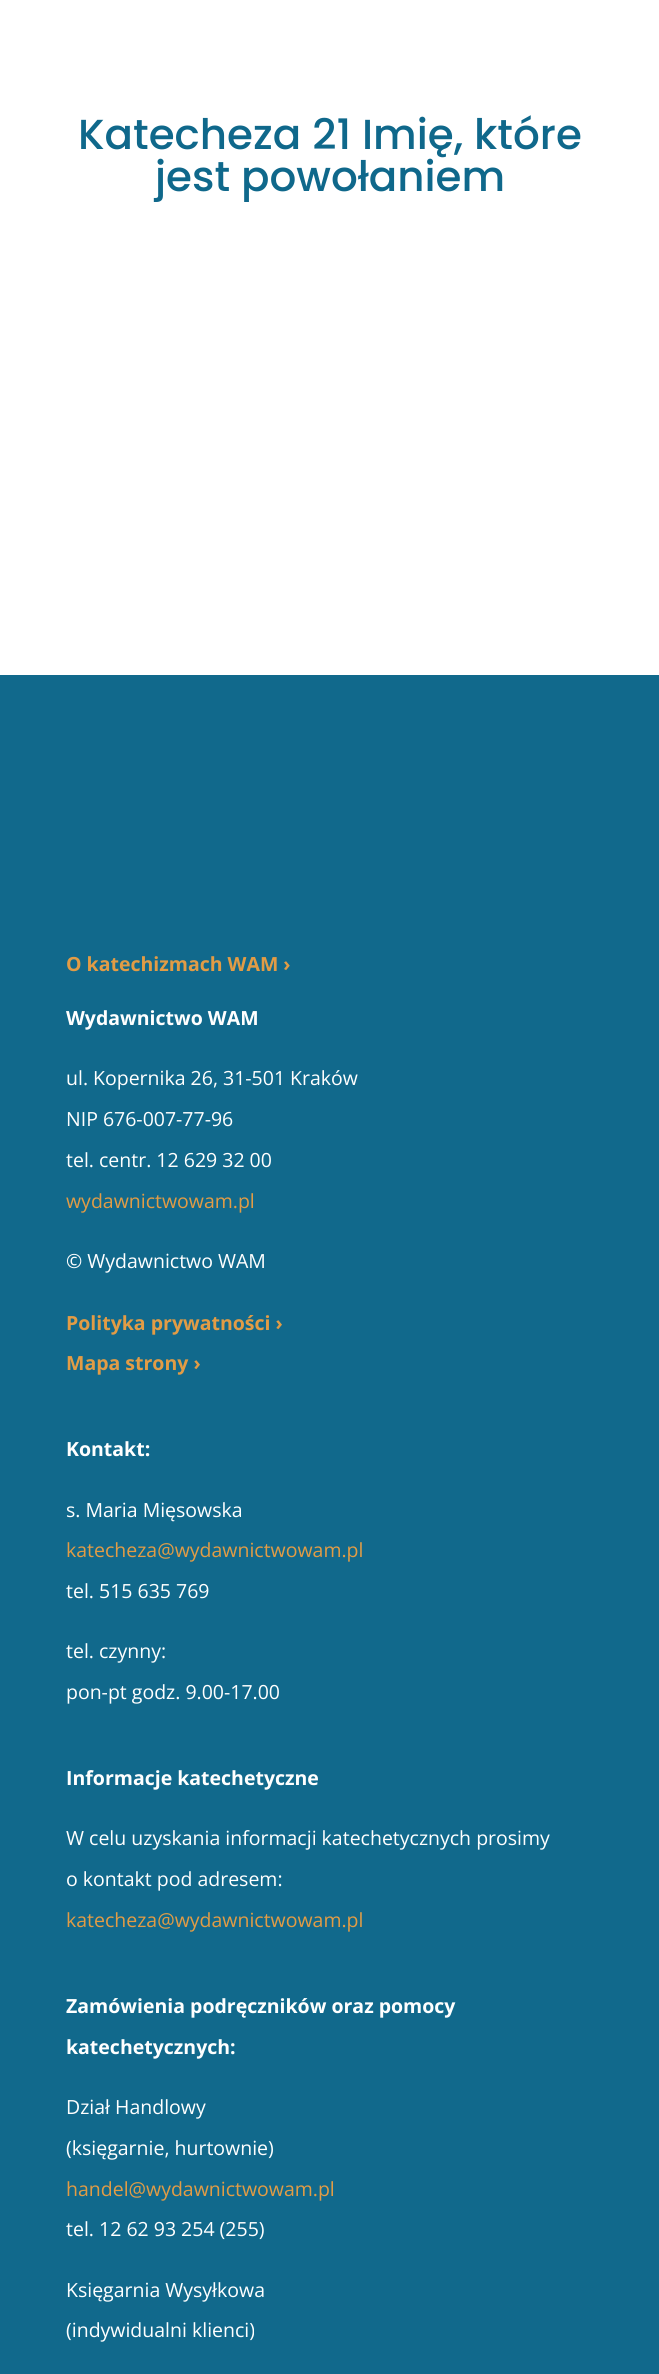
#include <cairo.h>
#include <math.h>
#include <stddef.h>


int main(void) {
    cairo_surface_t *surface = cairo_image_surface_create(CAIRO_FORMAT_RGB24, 659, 2374);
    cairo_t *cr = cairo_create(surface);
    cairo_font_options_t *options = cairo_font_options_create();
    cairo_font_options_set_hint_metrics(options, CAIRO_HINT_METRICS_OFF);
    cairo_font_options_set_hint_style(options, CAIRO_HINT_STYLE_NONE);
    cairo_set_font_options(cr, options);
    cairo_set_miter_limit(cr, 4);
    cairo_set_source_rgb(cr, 1, 1, 1);
    cairo_paint(cr);
    cairo_select_font_face(cr, "Poppins Medium", CAIRO_FONT_SLANT_NORMAL, CAIRO_FONT_WEIGHT_NORMAL);
    cairo_set_font_size(cr, 42);
    cairo_set_source_rgb(cr, 0.059, 0.408, 0.545);
    cairo_move_to(cr, 78, 149);
    cairo_show_text(cr, "Katecheza 21 Imię, które");
    cairo_move_to(cr, 155, 191);
    cairo_show_text(cr, "jest powołaniem");
    cairo_set_source_rgb(cr, 0.067, 0.412, 0.549);
    cairo_rectangle(cr, 0, 675, 659, 1699);
    cairo_fill(cr);
    cairo_select_font_face(cr, "Open Sans", CAIRO_FONT_SLANT_NORMAL, CAIRO_FONT_WEIGHT_BOLD);
    cairo_set_font_size(cr, 19.5);
    cairo_set_source_rgb(cr, 0.886, 0.612, 0.271);
    cairo_move_to(cr, 66, 971);
    cairo_show_text(cr, "O katechizmach WAM ›");
    cairo_set_source_rgb(cr, 1, 1, 1);
    cairo_move_to(cr, 66, 1025);
    cairo_show_text(cr, "Wydawnictwo WAM");
    cairo_select_font_face(cr, "Open Sans", CAIRO_FONT_SLANT_NORMAL, CAIRO_FONT_WEIGHT_NORMAL);
    cairo_move_to(cr, 66, 1085);
    cairo_show_text(cr, "ul. Kopernika 26, 31-501 Kraków");
    cairo_move_to(cr, 66, 1126);
    cairo_show_text(cr, "NIP 676-007-77-96");
    cairo_move_to(cr, 66, 1167);
    cairo_show_text(cr, "tel. centr. 12 629 32 00");
    cairo_set_source_rgb(cr, 0.886, 0.612, 0.271);
    cairo_move_to(cr, 66, 1208);
    cairo_show_text(cr, "wydawnictwowam.pl");
    cairo_set_source_rgb(cr, 1, 1, 1);
    cairo_move_to(cr, 66, 1268);
    cairo_show_text(cr, "© Wydawnictwo WAM");
    cairo_select_font_face(cr, "Open Sans", CAIRO_FONT_SLANT_NORMAL, CAIRO_FONT_WEIGHT_BOLD);
    cairo_set_source_rgb(cr, 0.886, 0.612, 0.271);
    cairo_move_to(cr, 66, 1330);
    cairo_show_text(cr, "Polityka prywatności ›");
    cairo_move_to(cr, 66, 1370);
    cairo_show_text(cr, "Mapa strony ›");
    cairo_set_source_rgb(cr, 1, 1, 1);
    cairo_move_to(cr, 66, 1456);
    cairo_show_text(cr, "Kontakt:");
    cairo_select_font_face(cr, "Open Sans", CAIRO_FONT_SLANT_NORMAL, CAIRO_FONT_WEIGHT_NORMAL);
    cairo_move_to(cr, 66, 1517);
    cairo_show_text(cr, "s. Maria Mięsowska");
    cairo_set_source_rgb(cr, 0.886, 0.612, 0.271);
    cairo_move_to(cr, 66, 1557);
    cairo_show_text(cr, "katecheza@wydawnictwowam.pl");
    cairo_set_source_rgb(cr, 1, 1, 1);
    cairo_move_to(cr, 66, 1598);
    cairo_show_text(cr, "tel. 515 635 769");
    cairo_move_to(cr, 66, 1658);
    cairo_show_text(cr, "tel. czynny:");
    cairo_move_to(cr, 66, 1699);
    cairo_show_text(cr, "pon-pt godz. 9.00-17.00");
    cairo_select_font_face(cr, "Open Sans", CAIRO_FONT_SLANT_NORMAL, CAIRO_FONT_WEIGHT_BOLD);
    cairo_move_to(cr, 66, 1785);
    cairo_show_text(cr, "Informacje katechetyczne");
    cairo_select_font_face(cr, "Open Sans", CAIRO_FONT_SLANT_NORMAL, CAIRO_FONT_WEIGHT_NORMAL);
    cairo_move_to(cr, 66, 1845);
    cairo_show_text(cr, "W celu uzyskania informacji katechetycznych prosimy");
    cairo_move_to(cr, 66, 1886);
    cairo_show_text(cr, "o kontakt pod adresem:");
    cairo_set_source_rgb(cr, 0.886, 0.612, 0.271);
    cairo_move_to(cr, 66, 1927);
    cairo_show_text(cr, "katecheza@wydawnictwowam.pl");
    cairo_select_font_face(cr, "Open Sans", CAIRO_FONT_SLANT_NORMAL, CAIRO_FONT_WEIGHT_BOLD);
    cairo_set_source_rgb(cr, 1, 1, 1);
    cairo_move_to(cr, 66, 2013);
    cairo_show_text(cr, "Zamówienia podręczników oraz pomocy");
    cairo_move_to(cr, 66, 2054);
    cairo_show_text(cr, "katechetycznych:");
    cairo_select_font_face(cr, "Open Sans", CAIRO_FONT_SLANT_NORMAL, CAIRO_FONT_WEIGHT_NORMAL);
    cairo_move_to(cr, 66, 2114);
    cairo_show_text(cr, "Dział Handlowy");
    cairo_move_to(cr, 66, 2155);
    cairo_show_text(cr, "(księgarnie, hurtownie)");
    cairo_set_source_rgb(cr, 0.886, 0.612, 0.271);
    cairo_move_to(cr, 66, 2196);
    cairo_show_text(cr, "handel@wydawnictwowam.pl");
    cairo_set_source_rgb(cr, 1, 1, 1);
    cairo_move_to(cr, 66, 2236);
    cairo_show_text(cr, "tel. 12 62 93 254 (255)");
    cairo_move_to(cr, 66, 2297);
    cairo_show_text(cr, "Księgarnia Wysyłkowa");
    cairo_move_to(cr, 66, 2337);
    cairo_show_text(cr, "(indywidualni klienci)");
    cairo_surface_write_to_png(surface, "page.png");
    cairo_font_options_destroy(options);
    cairo_destroy(cr);
    cairo_surface_destroy(surface);
    return 0;
}
